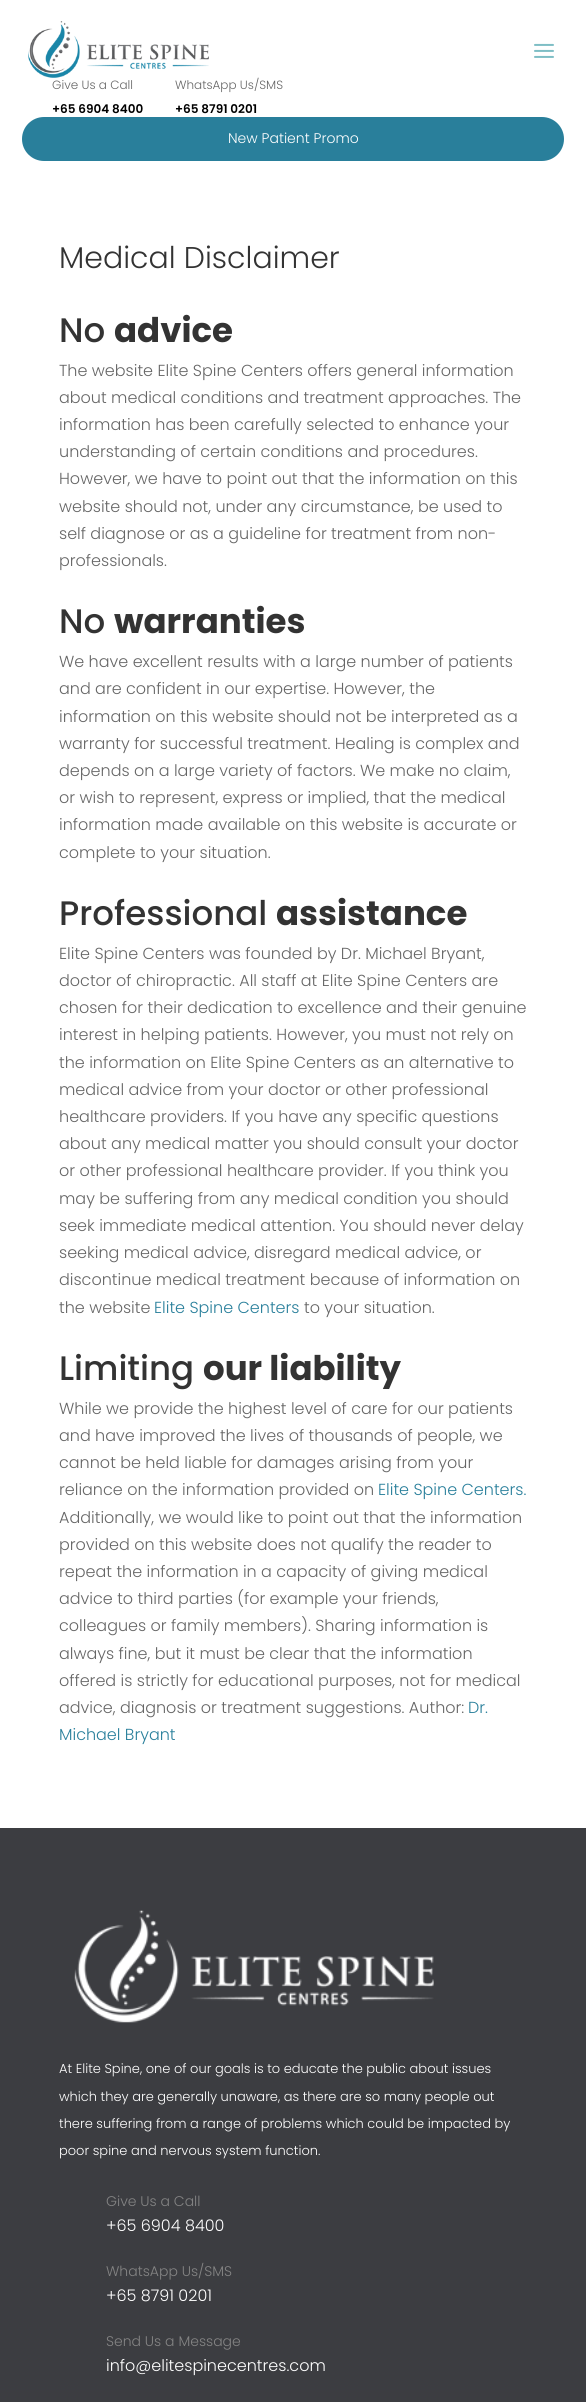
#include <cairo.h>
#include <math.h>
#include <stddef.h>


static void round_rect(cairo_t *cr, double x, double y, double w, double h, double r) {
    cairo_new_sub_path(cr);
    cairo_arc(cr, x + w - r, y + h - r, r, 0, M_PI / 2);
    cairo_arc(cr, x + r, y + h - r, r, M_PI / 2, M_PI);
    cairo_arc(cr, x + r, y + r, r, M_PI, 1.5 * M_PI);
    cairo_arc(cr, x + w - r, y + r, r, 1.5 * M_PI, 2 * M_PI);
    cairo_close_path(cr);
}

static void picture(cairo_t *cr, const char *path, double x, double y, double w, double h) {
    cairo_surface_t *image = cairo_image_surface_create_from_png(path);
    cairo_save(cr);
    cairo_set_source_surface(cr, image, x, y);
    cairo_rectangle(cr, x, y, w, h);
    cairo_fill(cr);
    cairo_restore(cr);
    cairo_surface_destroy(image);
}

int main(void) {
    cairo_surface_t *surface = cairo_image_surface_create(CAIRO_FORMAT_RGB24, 586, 2402);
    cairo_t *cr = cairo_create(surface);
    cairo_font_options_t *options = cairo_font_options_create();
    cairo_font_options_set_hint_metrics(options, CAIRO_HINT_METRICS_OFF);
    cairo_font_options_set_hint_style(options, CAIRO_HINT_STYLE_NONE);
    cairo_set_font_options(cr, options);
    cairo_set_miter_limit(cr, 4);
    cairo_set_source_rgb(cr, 1, 1, 1);
    cairo_paint(cr);
    cairo_select_font_face(cr, "Poppins Light", CAIRO_FONT_SLANT_NORMAL, CAIRO_FONT_WEIGHT_NORMAL);
    cairo_set_font_size(cr, 12);
    cairo_set_source_rgb(cr, 0.4, 0.4, 0.4);
    cairo_move_to(cr, 175, 89);
    cairo_show_text(cr, "WhatsApp Us/SMS");
    picture(cr, "img1.png", 28, 21, 181, 57);
    picture(cr, "img2.png", 534, 43, 20, 15);
    cairo_move_to(cr, 52, 89);
    cairo_show_text(cr, "Give Us a Call");
    cairo_select_font_face(cr, "Poppins SemiBold", CAIRO_FONT_SLANT_NORMAL, CAIRO_FONT_WEIGHT_NORMAL);
    cairo_set_source_rgb(cr, 0, 0, 0);
    cairo_move_to(cr, 52, 113);
    cairo_show_text(cr, "+65 6904 8400");
    cairo_move_to(cr, 175, 113);
    cairo_show_text(cr, "+65 8791 0201");
    cairo_set_source_rgb(cr, 0.161, 0.498, 0.608);
    round_rect(cr, 21, 116, 544, 46, 23);
    cairo_fill_preserve(cr);
    cairo_set_source_rgb(cr, 1, 1, 1);
    cairo_stroke(cr);
    cairo_select_font_face(cr, "Poppins Light", CAIRO_FONT_SLANT_NORMAL, CAIRO_FONT_WEIGHT_NORMAL);
    cairo_set_font_size(cr, 14);
    cairo_move_to(cr, 228, 143);
    cairo_show_text(cr, "New Patient Promo");
    cairo_set_font_size(cr, 30);
    cairo_set_source_rgb(cr, 0.2, 0.2, 0.2);
    cairo_move_to(cr, 59, 268);
    cairo_show_text(cr, "Medical Disclaimer");
    cairo_select_font_face(cr, "Poppins Medium", CAIRO_FONT_SLANT_NORMAL, CAIRO_FONT_WEIGHT_NORMAL);
    cairo_set_font_size(cr, 34);
    cairo_move_to(cr, 59, 342);
    cairo_show_text(cr, "No");
    cairo_select_font_face(cr, "Poppins", CAIRO_FONT_SLANT_NORMAL, CAIRO_FONT_WEIGHT_BOLD);
    cairo_move_to(cr, 114, 342);
    cairo_show_text(cr, "advice");
    cairo_select_font_face(cr, "Poppins Light", CAIRO_FONT_SLANT_NORMAL, CAIRO_FONT_WEIGHT_NORMAL);
    cairo_set_font_size(cr, 16);
    cairo_set_source_rgb(cr, 0.4, 0.4, 0.4);
    cairo_move_to(cr, 59, 376);
    cairo_show_text(cr, "The website Elite Spine Centers offers general information");
    cairo_move_to(cr, 59, 403);
    cairo_show_text(cr, "about medical conditions and treatment approaches. The");
    cairo_move_to(cr, 59, 430);
    cairo_show_text(cr, "information has been carefully selected to enhance your");
    cairo_move_to(cr, 59, 457);
    cairo_show_text(cr, "understanding of certain conditions and procedures.");
    cairo_move_to(cr, 59, 484);
    cairo_show_text(cr, "However, we have to point out that the information on this");
    cairo_move_to(cr, 59, 512);
    cairo_show_text(cr, "website should not, under any circumstance, be used to");
    cairo_move_to(cr, 59, 539);
    cairo_show_text(cr, "self diagnose or as a guideline for treatment from non-");
    cairo_move_to(cr, 59, 566);
    cairo_show_text(cr, "professionals.");
    cairo_select_font_face(cr, "Poppins Medium", CAIRO_FONT_SLANT_NORMAL, CAIRO_FONT_WEIGHT_NORMAL);
    cairo_set_font_size(cr, 34);
    cairo_set_source_rgb(cr, 0.2, 0.2, 0.2);
    cairo_move_to(cr, 59, 633);
    cairo_show_text(cr, "No");
    cairo_select_font_face(cr, "Poppins", CAIRO_FONT_SLANT_NORMAL, CAIRO_FONT_WEIGHT_BOLD);
    cairo_move_to(cr, 114, 633);
    cairo_show_text(cr, "warranties");
    cairo_select_font_face(cr, "Poppins Light", CAIRO_FONT_SLANT_NORMAL, CAIRO_FONT_WEIGHT_NORMAL);
    cairo_set_font_size(cr, 16);
    cairo_set_source_rgb(cr, 0.4, 0.4, 0.4);
    cairo_move_to(cr, 59, 667);
    cairo_show_text(cr, "We have excellent results with a large number of patients");
    cairo_move_to(cr, 59, 694);
    cairo_show_text(cr, "and are confident in our expertise. However, the");
    cairo_move_to(cr, 59, 722);
    cairo_show_text(cr, "information on this website should not be interpreted as a");
    cairo_move_to(cr, 59, 749);
    cairo_show_text(cr, "warranty for successful treatment. Healing is complex and");
    cairo_move_to(cr, 59, 776);
    cairo_show_text(cr, "depends on a large variety of factors. We make no claim,");
    cairo_move_to(cr, 59, 803);
    cairo_show_text(cr, "or wish to represent, express or implied, that the medical");
    cairo_move_to(cr, 59, 830);
    cairo_show_text(cr, "information made available on this website is accurate or");
    cairo_move_to(cr, 59, 858);
    cairo_show_text(cr, "complete to your situation.");
    cairo_select_font_face(cr, "Poppins Medium", CAIRO_FONT_SLANT_NORMAL, CAIRO_FONT_WEIGHT_NORMAL);
    cairo_set_font_size(cr, 34);
    cairo_set_source_rgb(cr, 0.2, 0.2, 0.2);
    cairo_move_to(cr, 59, 925);
    cairo_show_text(cr, "Professional");
    cairo_select_font_face(cr, "Poppins", CAIRO_FONT_SLANT_NORMAL, CAIRO_FONT_WEIGHT_BOLD);
    cairo_move_to(cr, 276, 925);
    cairo_show_text(cr, "assistance");
    cairo_select_font_face(cr, "Poppins Light", CAIRO_FONT_SLANT_NORMAL, CAIRO_FONT_WEIGHT_NORMAL);
    cairo_set_font_size(cr, 16);
    cairo_set_source_rgb(cr, 0.4, 0.4, 0.4);
    cairo_move_to(cr, 59, 959);
    cairo_show_text(cr, "Elite Spine Centers was founded by Dr. Michael Bryant,");
    cairo_move_to(cr, 59, 986);
    cairo_show_text(cr, "doctor of chiropractic. All staff at Elite Spine Centers are");
    cairo_move_to(cr, 59, 1013);
    cairo_show_text(cr, "chosen for their dedication to excellence and their genuine");
    cairo_move_to(cr, 59, 1040);
    cairo_show_text(cr, "interest in helping patients. However, you must not rely on");
    cairo_move_to(cr, 59, 1068);
    cairo_show_text(cr, "the information on Elite Spine Centers as an alternative to");
    cairo_move_to(cr, 59, 1095);
    cairo_show_text(cr, "medical advice from your doctor or other professional");
    cairo_move_to(cr, 59, 1122);
    cairo_show_text(cr, "healthcare providers. If you have any specific questions");
    cairo_move_to(cr, 59, 1149);
    cairo_show_text(cr, "about any medical matter you should consult your doctor");
    cairo_move_to(cr, 59, 1176);
    cairo_show_text(cr, "or other professional healthcare provider. If you think you");
    cairo_move_to(cr, 59, 1204);
    cairo_show_text(cr, "may be suffering from any medical condition you should");
    cairo_move_to(cr, 59, 1231);
    cairo_show_text(cr, "seek immediate medical attention. You should never delay");
    cairo_move_to(cr, 59, 1258);
    cairo_show_text(cr, "seeking medical advice, disregard medical advice, or");
    cairo_move_to(cr, 59, 1285);
    cairo_show_text(cr, "discontinue medical treatment because of information on");
    cairo_move_to(cr, 59, 1313);
    cairo_show_text(cr, "the website");
    cairo_set_source_rgb(cr, 0.161, 0.498, 0.608);
    cairo_move_to(cr, 154, 1313);
    cairo_show_text(cr, "Elite Spine Centers");
    cairo_set_source_rgb(cr, 0.4, 0.4, 0.4);
    cairo_move_to(cr, 304, 1313);
    cairo_show_text(cr, "to your situation.");
    cairo_select_font_face(cr, "Poppins Medium", CAIRO_FONT_SLANT_NORMAL, CAIRO_FONT_WEIGHT_NORMAL);
    cairo_set_font_size(cr, 34);
    cairo_set_source_rgb(cr, 0.2, 0.2, 0.2);
    cairo_move_to(cr, 59, 1380);
    cairo_show_text(cr, "Limiting");
    cairo_select_font_face(cr, "Poppins", CAIRO_FONT_SLANT_NORMAL, CAIRO_FONT_WEIGHT_BOLD);
    cairo_move_to(cr, 203, 1380);
    cairo_show_text(cr, "our liability");
    cairo_select_font_face(cr, "Poppins Light", CAIRO_FONT_SLANT_NORMAL, CAIRO_FONT_WEIGHT_NORMAL);
    cairo_set_font_size(cr, 16);
    cairo_set_source_rgb(cr, 0.4, 0.4, 0.4);
    cairo_move_to(cr, 59, 1414);
    cairo_show_text(cr, "While we provide the highest level of care for our patients");
    cairo_move_to(cr, 59, 1441);
    cairo_show_text(cr, "and have improved the lives of thousands of people, we");
    cairo_move_to(cr, 59, 1468);
    cairo_show_text(cr, "cannot be held liable for damages arising from your");
    cairo_move_to(cr, 59, 1495);
    cairo_show_text(cr, "reliance on the information provided on");
    cairo_set_source_rgb(cr, 0.161, 0.498, 0.608);
    cairo_move_to(cr, 378, 1495);
    cairo_show_text(cr, "Elite Spine Centers.");
    cairo_set_source_rgb(cr, 0.4, 0.4, 0.4);
    cairo_move_to(cr, 59, 1523);
    cairo_show_text(cr, "Additionally, we would like to point out that the information");
    cairo_move_to(cr, 59, 1550);
    cairo_show_text(cr, "provided on this website does not qualify the reader to");
    cairo_move_to(cr, 59, 1577);
    cairo_show_text(cr, "repeat the information in a capacity of giving medical");
    cairo_move_to(cr, 59, 1604);
    cairo_show_text(cr, "advice to third parties (for example your friends,");
    cairo_move_to(cr, 59, 1631);
    cairo_show_text(cr, "colleagues or family members). Sharing information is");
    cairo_move_to(cr, 59, 1659);
    cairo_show_text(cr, "always fine, but it must be clear that the information");
    cairo_move_to(cr, 59, 1686);
    cairo_show_text(cr, "offered is strictly for educational purposes, not for medical");
    cairo_move_to(cr, 59, 1713);
    cairo_show_text(cr, "advice, diagnosis or treatment suggestions. Author:");
    cairo_set_source_rgb(cr, 0.161, 0.498, 0.608);
    cairo_move_to(cr, 468, 1713);
    cairo_show_text(cr, "Dr.");
    cairo_move_to(cr, 59, 1740);
    cairo_show_text(cr, "Michael Bryant");
    cairo_set_source_rgb(cr, 0.235, 0.239, 0.255);
    cairo_rectangle(cr, 0, 1828, 586, 574);
    cairo_fill(cr);
    picture(cr, "img3.png", 74, 1910, 360, 113);
    cairo_set_font_size(cr, 13);
    cairo_set_source_rgb(cr, 1, 1, 1);
    cairo_move_to(cr, 59, 2073);
    cairo_show_text(cr, "At Elite Spine, one of our goals is to educate the public about issues");
    cairo_move_to(cr, 59, 2101);
    cairo_show_text(cr, "which they are generally unaware, as there are so many people out");
    cairo_move_to(cr, 59, 2128);
    cairo_show_text(cr, "there suffering from a range of problems which could be impacted by");
    cairo_move_to(cr, 59, 2155);
    cairo_show_text(cr, "poor spine and nervous system function.");
    cairo_set_font_size(cr, 14);
    cairo_set_source_rgb(cr, 0.518, 0.518, 0.518);
    cairo_move_to(cr, 106, 2206);
    cairo_show_text(cr, "Give Us a Call");
    cairo_set_font_size(cr, 16);
    cairo_set_source_rgb(cr, 1, 1, 1);
    cairo_move_to(cr, 106, 2231);
    cairo_show_text(cr, "+65 6904 8400");
    cairo_set_font_size(cr, 14);
    cairo_set_source_rgb(cr, 0.518, 0.518, 0.518);
    cairo_move_to(cr, 106, 2276);
    cairo_show_text(cr, "WhatsApp Us/SMS");
    cairo_set_font_size(cr, 16);
    cairo_set_source_rgb(cr, 1, 1, 1);
    cairo_move_to(cr, 106, 2301);
    cairo_show_text(cr, "+65 8791 0201");
    cairo_set_font_size(cr, 14);
    cairo_set_source_rgb(cr, 0.518, 0.518, 0.518);
    cairo_move_to(cr, 106, 2346);
    cairo_show_text(cr, "Send Us a Message");
    cairo_set_font_size(cr, 16);
    cairo_set_source_rgb(cr, 1, 1, 1);
    cairo_move_to(cr, 106, 2371);
    cairo_show_text(cr, "info@elitespinecentres.com");
    cairo_surface_write_to_png(surface, "page.png");
    cairo_font_options_destroy(options);
    cairo_destroy(cr);
    cairo_surface_destroy(surface);
    return 0;
}
